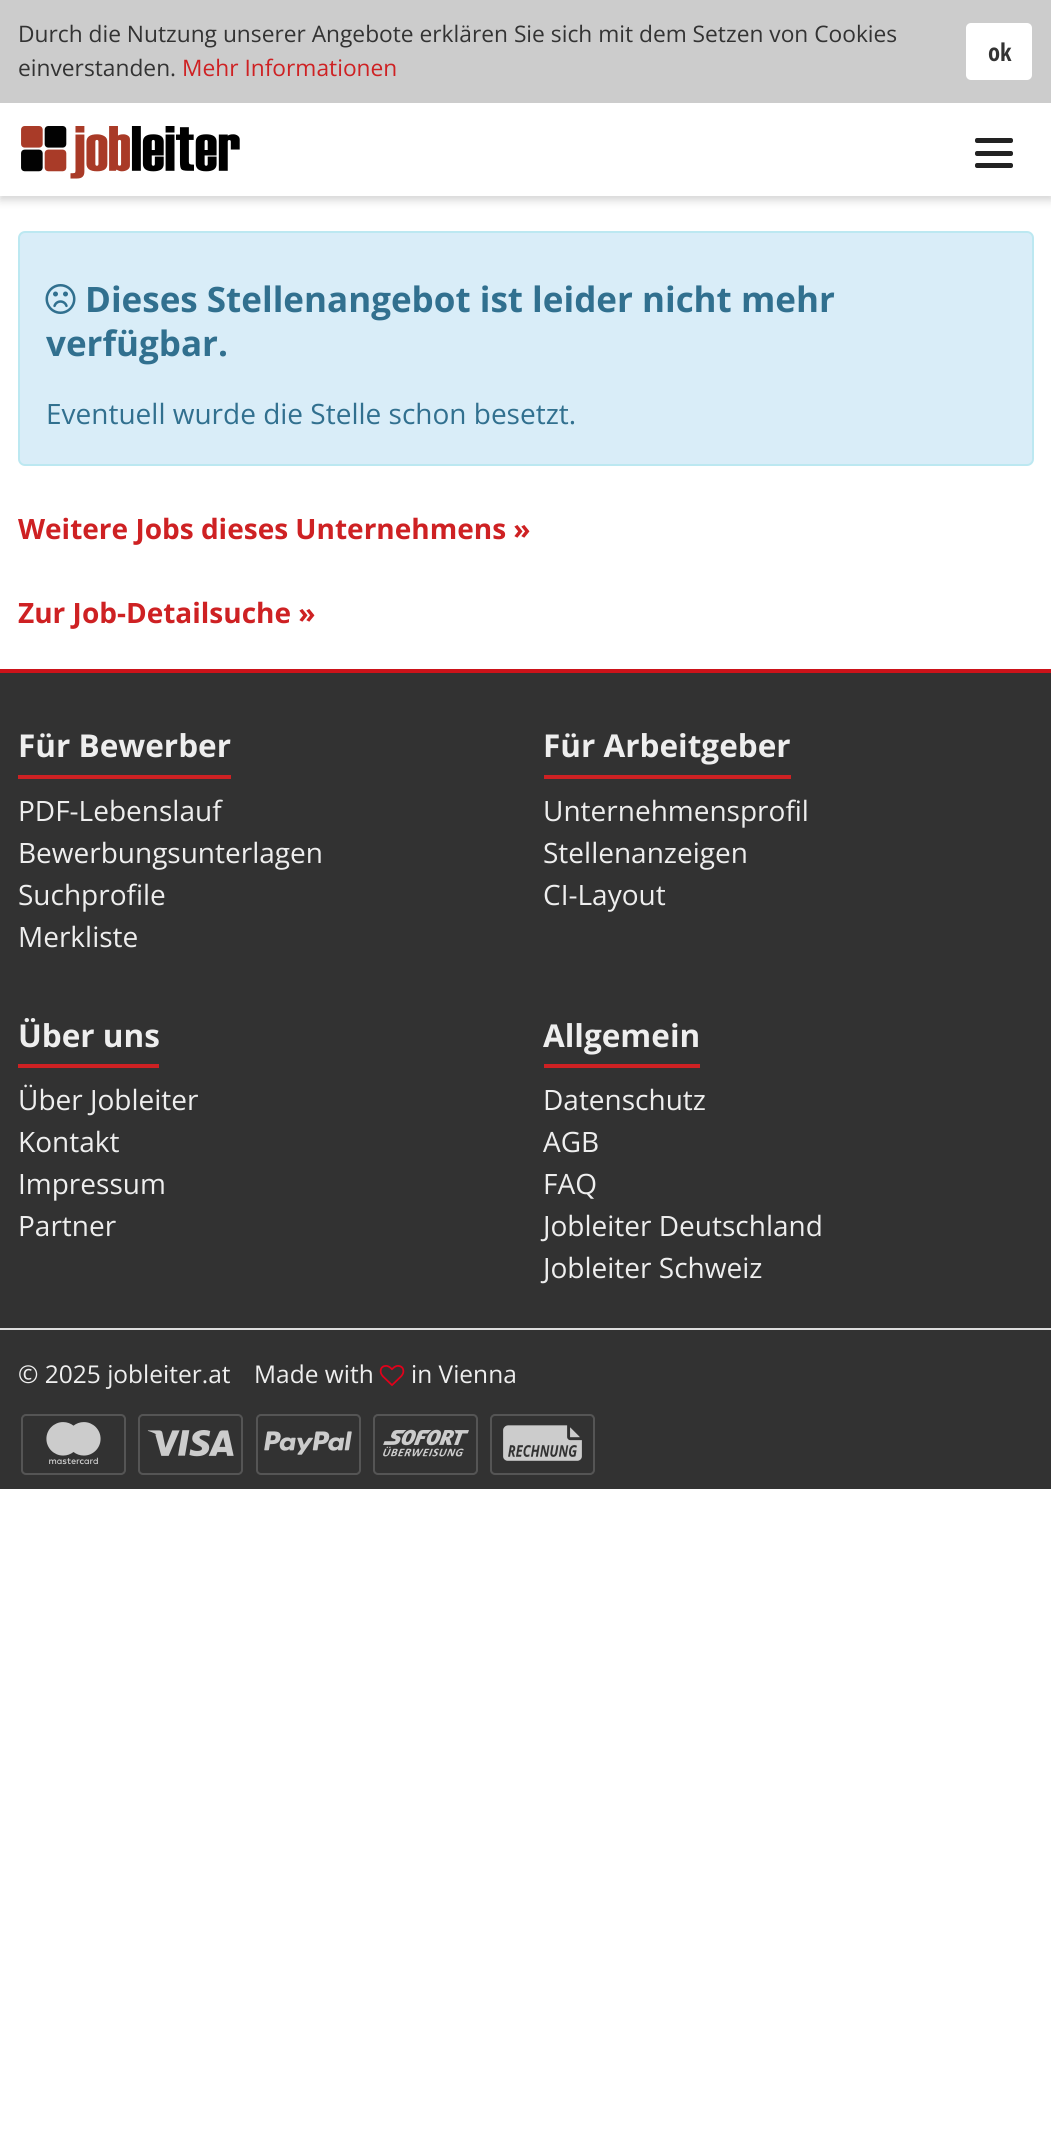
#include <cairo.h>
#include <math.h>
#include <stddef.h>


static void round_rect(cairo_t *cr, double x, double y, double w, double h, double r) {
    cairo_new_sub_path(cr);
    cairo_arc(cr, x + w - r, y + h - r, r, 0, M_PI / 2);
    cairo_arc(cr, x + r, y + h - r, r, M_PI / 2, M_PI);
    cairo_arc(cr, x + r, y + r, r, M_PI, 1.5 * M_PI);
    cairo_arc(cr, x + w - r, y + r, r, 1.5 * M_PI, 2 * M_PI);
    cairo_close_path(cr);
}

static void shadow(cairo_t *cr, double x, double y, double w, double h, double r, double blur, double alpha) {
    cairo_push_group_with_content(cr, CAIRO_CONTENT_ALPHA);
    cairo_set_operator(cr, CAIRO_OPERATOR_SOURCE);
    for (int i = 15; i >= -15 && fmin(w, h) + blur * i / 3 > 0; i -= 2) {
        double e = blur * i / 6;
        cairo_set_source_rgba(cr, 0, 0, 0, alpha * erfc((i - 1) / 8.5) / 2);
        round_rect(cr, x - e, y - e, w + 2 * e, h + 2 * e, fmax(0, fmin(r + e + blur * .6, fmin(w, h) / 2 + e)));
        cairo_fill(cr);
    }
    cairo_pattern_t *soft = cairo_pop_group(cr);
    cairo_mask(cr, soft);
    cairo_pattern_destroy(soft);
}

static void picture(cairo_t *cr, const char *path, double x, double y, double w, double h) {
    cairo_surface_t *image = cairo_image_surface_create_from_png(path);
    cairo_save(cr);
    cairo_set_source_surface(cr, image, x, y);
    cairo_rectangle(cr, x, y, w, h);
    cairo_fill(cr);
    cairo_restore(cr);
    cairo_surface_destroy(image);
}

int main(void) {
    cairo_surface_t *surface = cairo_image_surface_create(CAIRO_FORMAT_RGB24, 1051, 2138);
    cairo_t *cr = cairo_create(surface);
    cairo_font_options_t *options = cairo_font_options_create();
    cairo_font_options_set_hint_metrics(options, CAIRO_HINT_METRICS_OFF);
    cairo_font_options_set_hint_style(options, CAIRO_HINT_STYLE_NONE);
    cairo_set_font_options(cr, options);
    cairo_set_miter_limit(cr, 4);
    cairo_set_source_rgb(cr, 1, 1, 1);
    cairo_paint(cr);
    cairo_set_source_rgb(cr, 0.565, 0.565, 0.565);
    shadow(cr, 0, 107, 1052, 93, 0, 4.5, 0.4);
    cairo_set_source_rgb(cr, 0.8, 0.8, 0.8);
    cairo_rectangle(cr, 0, 0, 1051, 103);
    cairo_fill(cr);
    cairo_select_font_face(cr, "Open Sans", CAIRO_FONT_SLANT_NORMAL, CAIRO_FONT_WEIGHT_NORMAL);
    cairo_set_font_size(cr, 22.75);
    cairo_set_source_rgb(cr, 0.2, 0.2, 0.2);
    cairo_move_to(cr, 18, 42);
    cairo_show_text(cr, "Durch die Nutzung unserer Angebote erklären Sie sich mit dem Setzen von Cookies");
    cairo_move_to(cr, 18, 76);
    cairo_show_text(cr, "einverstanden.");
    cairo_set_source_rgb(cr, 0.808, 0.129, 0.137);
    cairo_move_to(cr, 182, 76);
    cairo_show_text(cr, "Mehr Informationen");
    cairo_set_source_rgb(cr, 1, 1, 1);
    round_rect(cr, 965, 22, 68, 59, 6);
    cairo_fill_preserve(cr);
    cairo_set_source_rgb(cr, 0.8, 0.8, 0.8);
    cairo_stroke(cr);
    cairo_select_font_face(cr, "Open Sans Condensed", CAIRO_FONT_SLANT_NORMAL, CAIRO_FONT_WEIGHT_BOLD);
    cairo_set_font_size(cr, 24.5);
    cairo_set_source_rgb(cr, 0.2, 0.2, 0.2);
    cairo_move_to(cr, 988, 61);
    cairo_show_text(cr, "ok");
    cairo_set_source_rgb(cr, 1, 1, 1);
    cairo_rectangle(cr, 0, 103, 1051, 93);
    cairo_fill(cr);
    picture(cr, "img1.png", 21, 126, 219, 53);
    cairo_set_source_rgb(cr, 0.133, 0.133, 0.133);
    round_rect(cr, 975, 138, 38, 5, 2);
    cairo_fill(cr);
    round_rect(cr, 975, 151, 38, 5, 2);
    cairo_fill(cr);
    round_rect(cr, 975, 163, 38, 5, 2);
    cairo_fill(cr);
    cairo_set_source_rgb(cr, 0.851, 0.929, 0.969);
    round_rect(cr, 19, 232, 1014, 233, 6);
    cairo_fill_preserve(cr);
    cairo_set_source_rgb(cr, 0.737, 0.91, 0.945);
    cairo_stroke(cr);
    picture(cr, "img2.png", 45, 284, 31, 30);
    cairo_select_font_face(cr, "Open Sans", CAIRO_FONT_SLANT_NORMAL, CAIRO_FONT_WEIGHT_BOLD);
    cairo_set_font_size(cr, 35);
    cairo_set_source_rgb(cr, 0.192, 0.439, 0.561);
    cairo_move_to(cr, 85, 312);
    cairo_show_text(cr, "Dieses Stellenangebot ist leider nicht mehr");
    cairo_move_to(cr, 46, 356);
    cairo_show_text(cr, "verfügbar.");
    cairo_select_font_face(cr, "Open Sans", CAIRO_FONT_SLANT_NORMAL, CAIRO_FONT_WEIGHT_NORMAL);
    cairo_set_font_size(cr, 28);
    cairo_move_to(cr, 46, 424);
    cairo_show_text(cr, "Eventuell wurde die Stelle schon besetzt.");
    cairo_select_font_face(cr, "Open Sans", CAIRO_FONT_SLANT_NORMAL, CAIRO_FONT_WEIGHT_BOLD);
    cairo_set_source_rgb(cr, 0.808, 0.129, 0.137);
    cairo_move_to(cr, 18, 539);
    cairo_show_text(cr, "Weitere Jobs dieses Unternehmens »");
    cairo_move_to(cr, 18, 623);
    cairo_show_text(cr, "Zur Job-Detailsuche »");
    cairo_set_source_rgb(cr, 0.196, 0.196, 0.196);
    cairo_rectangle(cr, 0, 673, 1051, 816);
    cairo_fill(cr);
    cairo_set_source_rgb(cr, 0.8, 0.078, 0.102);
    cairo_rectangle(cr, 0, 669, 1051, 4);
    cairo_fill(cr);
    cairo_set_source_rgb(cr, 0.808, 0.129, 0.137);
    cairo_rectangle(cr, 18, 775, 213, 4);
    cairo_fill(cr);
    cairo_set_font_size(cr, 31.5);
    cairo_set_source_rgb(cr, 0.933, 0.933, 0.933);
    cairo_move_to(cr, 18, 757);
    cairo_show_text(cr, "Für Bewerber");
    cairo_select_font_face(cr, "Open Sans", CAIRO_FONT_SLANT_NORMAL, CAIRO_FONT_WEIGHT_NORMAL);
    cairo_set_font_size(cr, 28);
    cairo_move_to(cr, 18, 821);
    cairo_show_text(cr, "PDF-Lebenslauf");
    cairo_move_to(cr, 18, 863);
    cairo_show_text(cr, "Bewerbungsunterlagen");
    cairo_move_to(cr, 18, 905);
    cairo_show_text(cr, "Suchprofile");
    cairo_move_to(cr, 18, 947);
    cairo_show_text(cr, "Merkliste");
    cairo_set_source_rgb(cr, 0.808, 0.129, 0.137);
    cairo_rectangle(cr, 544, 775, 247, 4);
    cairo_fill(cr);
    cairo_select_font_face(cr, "Open Sans", CAIRO_FONT_SLANT_NORMAL, CAIRO_FONT_WEIGHT_BOLD);
    cairo_set_font_size(cr, 31.5);
    cairo_set_source_rgb(cr, 0.933, 0.933, 0.933);
    cairo_move_to(cr, 543, 757);
    cairo_show_text(cr, "Für Arbeitgeber");
    cairo_select_font_face(cr, "Open Sans", CAIRO_FONT_SLANT_NORMAL, CAIRO_FONT_WEIGHT_NORMAL);
    cairo_set_font_size(cr, 28);
    cairo_move_to(cr, 543, 821);
    cairo_show_text(cr, "Unternehmensprofil");
    cairo_move_to(cr, 543, 863);
    cairo_show_text(cr, "Stellenanzeigen");
    cairo_move_to(cr, 543, 905);
    cairo_show_text(cr, "CI-Layout");
    cairo_set_source_rgb(cr, 0.808, 0.129, 0.137);
    cairo_rectangle(cr, 18, 1064, 141, 4);
    cairo_fill(cr);
    cairo_select_font_face(cr, "Open Sans", CAIRO_FONT_SLANT_NORMAL, CAIRO_FONT_WEIGHT_BOLD);
    cairo_set_font_size(cr, 31.5);
    cairo_set_source_rgb(cr, 0.933, 0.933, 0.933);
    cairo_move_to(cr, 18, 1047);
    cairo_show_text(cr, "Über uns");
    cairo_select_font_face(cr, "Open Sans", CAIRO_FONT_SLANT_NORMAL, CAIRO_FONT_WEIGHT_NORMAL);
    cairo_set_font_size(cr, 28);
    cairo_move_to(cr, 18, 1110);
    cairo_show_text(cr, "Über Jobleiter");
    cairo_move_to(cr, 18, 1152);
    cairo_show_text(cr, "Kontakt");
    cairo_move_to(cr, 18, 1194);
    cairo_show_text(cr, "Impressum");
    cairo_move_to(cr, 18, 1236);
    cairo_show_text(cr, "Partner");
    cairo_set_source_rgb(cr, 0.808, 0.129, 0.137);
    cairo_rectangle(cr, 544, 1064, 156, 4);
    cairo_fill(cr);
    cairo_select_font_face(cr, "Open Sans", CAIRO_FONT_SLANT_NORMAL, CAIRO_FONT_WEIGHT_BOLD);
    cairo_set_font_size(cr, 31.5);
    cairo_set_source_rgb(cr, 0.933, 0.933, 0.933);
    cairo_move_to(cr, 543, 1047);
    cairo_show_text(cr, "Allgemein");
    cairo_select_font_face(cr, "Open Sans", CAIRO_FONT_SLANT_NORMAL, CAIRO_FONT_WEIGHT_NORMAL);
    cairo_set_font_size(cr, 28);
    cairo_move_to(cr, 543, 1110);
    cairo_show_text(cr, "Datenschutz");
    cairo_move_to(cr, 543, 1152);
    cairo_show_text(cr, "AGB");
    cairo_move_to(cr, 543, 1194);
    cairo_show_text(cr, "FAQ");
    cairo_move_to(cr, 543, 1236);
    cairo_show_text(cr, "Jobleiter Deutschland");
    cairo_move_to(cr, 543, 1278);
    cairo_show_text(cr, "Jobleiter Schweiz");
    cairo_set_source_rgb(cr, 0.867, 0.867, 0.867);
    cairo_rectangle(cr, 0, 1328, 1051, 2);
    cairo_fill(cr);
    cairo_set_font_size(cr, 24.5);
    cairo_set_source_rgb(cr, 0.933, 0.933, 0.933);
    cairo_move_to(cr, 18, 1383);
    cairo_show_text(cr, "© 2025 jobleiter.at");
    cairo_move_to(cr, 254, 1383);
    cairo_show_text(cr, "Made with");
    picture(cr, "img3.png", 379, 1365, 26, 21);
    cairo_move_to(cr, 411, 1383);
    cairo_show_text(cr, "in Vienna");
    round_rect(cr, 22, 1415, 103, 59, 4);
    cairo_set_source_rgb(cr, 0.333, 0.333, 0.333);
    cairo_stroke(cr);
    picture(cr, "img4.png", 46, 1422, 55, 43);
    round_rect(cr, 139, 1415, 103, 59, 4);
    cairo_stroke(cr);
    picture(cr, "img5.png", 147, 1430, 87, 27);
    round_rect(cr, 257, 1415, 103, 59, 4);
    cairo_stroke(cr);
    picture(cr, "img6.png", 264, 1431, 88, 24);
    round_rect(cr, 374, 1415, 103, 59, 4);
    cairo_stroke(cr);
    picture(cr, "img7.png", 383, 1429, 86, 28);
    round_rect(cr, 491, 1415, 103, 59, 4);
    cairo_stroke(cr);
    picture(cr, "img8.png", 503, 1425, 79, 36);
    cairo_surface_write_to_png(surface, "page.png");
    cairo_font_options_destroy(options);
    cairo_destroy(cr);
    cairo_surface_destroy(surface);
    return 0;
}
